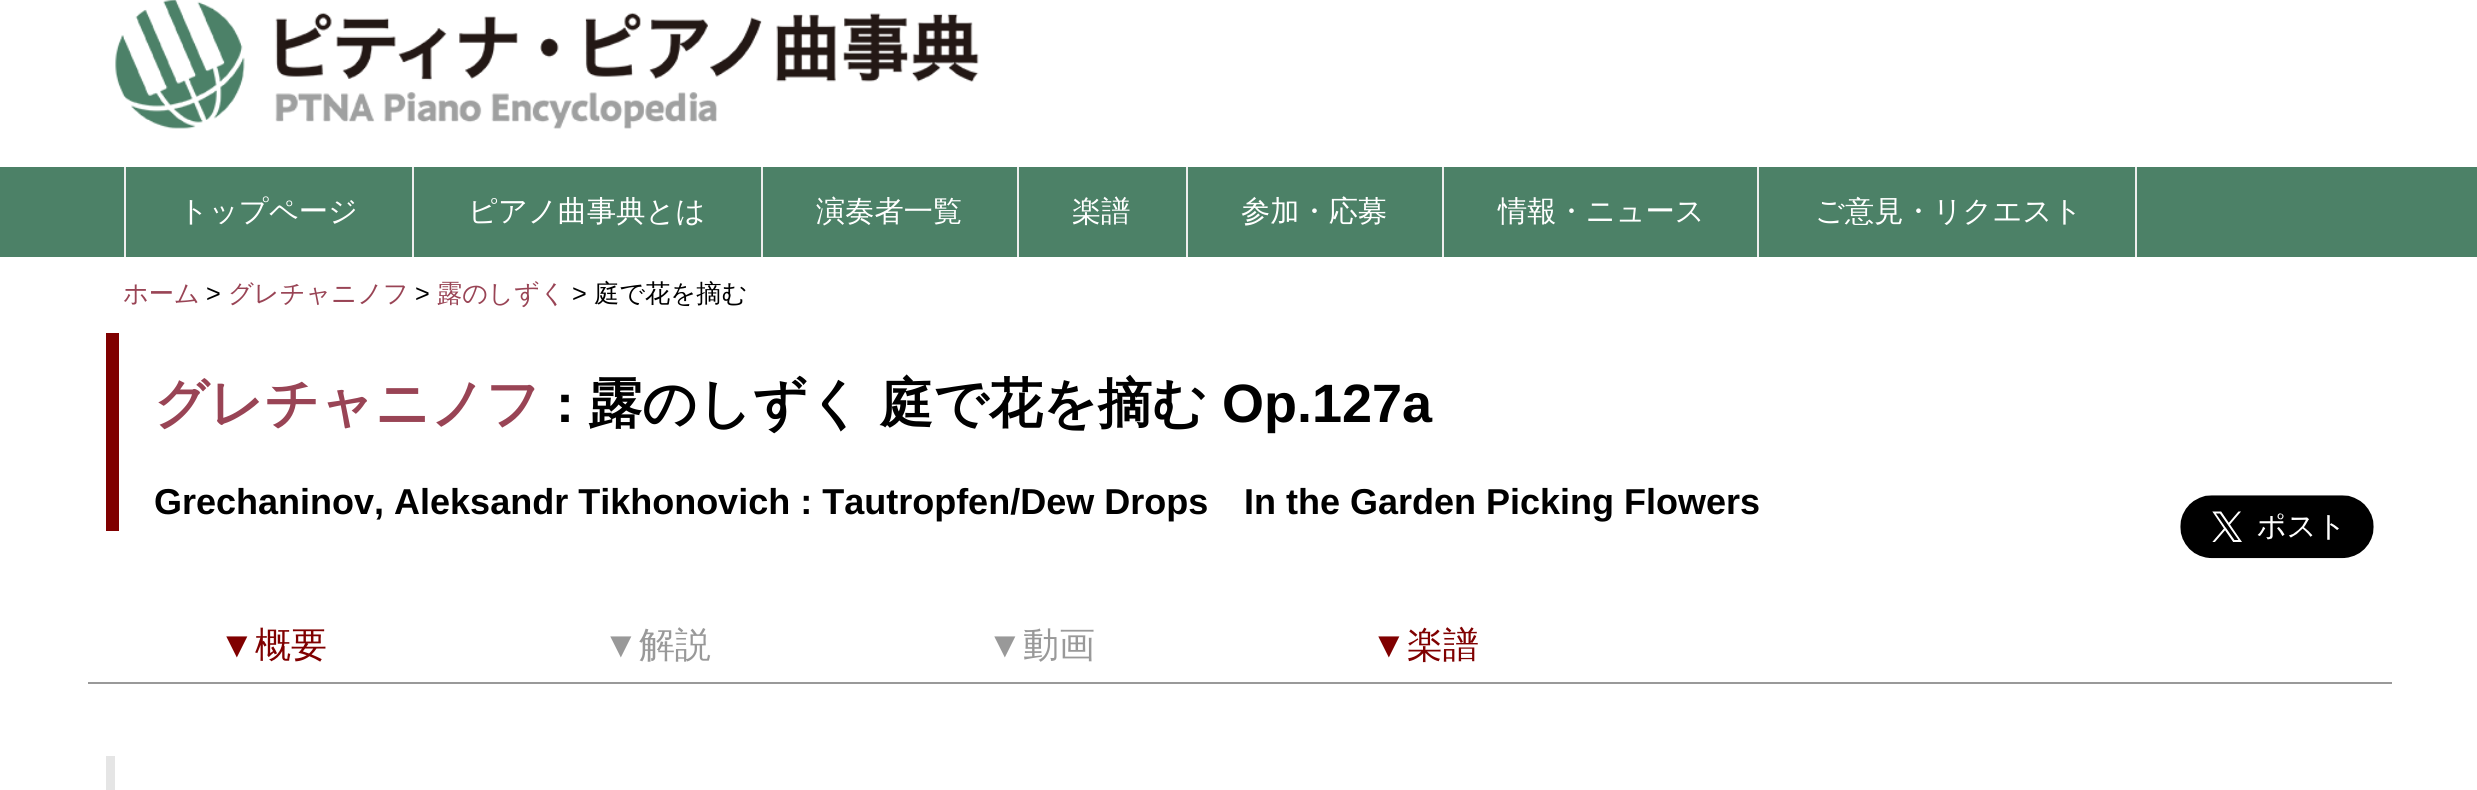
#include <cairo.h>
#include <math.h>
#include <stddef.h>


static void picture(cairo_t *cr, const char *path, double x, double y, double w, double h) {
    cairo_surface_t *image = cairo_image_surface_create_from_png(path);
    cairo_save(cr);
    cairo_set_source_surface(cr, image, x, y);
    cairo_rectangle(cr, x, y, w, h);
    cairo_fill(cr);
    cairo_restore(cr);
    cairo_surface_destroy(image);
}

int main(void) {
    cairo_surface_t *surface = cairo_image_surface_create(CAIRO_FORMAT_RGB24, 2477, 790);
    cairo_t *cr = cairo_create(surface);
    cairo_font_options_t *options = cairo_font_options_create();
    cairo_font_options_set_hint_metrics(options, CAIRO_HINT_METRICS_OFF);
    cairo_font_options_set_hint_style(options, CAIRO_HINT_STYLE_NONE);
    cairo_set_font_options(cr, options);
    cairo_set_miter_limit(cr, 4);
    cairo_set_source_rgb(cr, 1, 1, 1);
    cairo_paint(cr);
    picture(cr, "img1.png", 115, 0, 864, 129);
    cairo_set_source_rgb(cr, 0.298, 0.506, 0.404);
    cairo_rectangle(cr, 0, 167, 2477, 90);
    cairo_fill(cr);
    cairo_set_source_rgb(cr, 0.933, 0.933, 0.933);
    cairo_rectangle(cr, 124, 167, 2, 90);
    cairo_fill(cr);
    cairo_rectangle(cr, 412, 167, 2, 90);
    cairo_fill(cr);
    cairo_select_font_face(cr, "WenQuanYi Zen Hei Medium", CAIRO_FONT_SLANT_NORMAL, CAIRO_FONT_WEIGHT_NORMAL);
    cairo_set_font_size(cr, 29.25);
    cairo_set_source_rgb(cr, 1, 1, 1);
    cairo_move_to(cr, 179, 221);
    cairo_show_text(cr, "トップページ");
    cairo_set_source_rgb(cr, 0.933, 0.933, 0.933);
    cairo_rectangle(cr, 761, 167, 2, 90);
    cairo_fill(cr);
    cairo_set_source_rgb(cr, 1, 1, 1);
    cairo_move_to(cr, 468, 221);
    cairo_show_text(cr, "ピアノ曲事典とは");
    cairo_set_source_rgb(cr, 0.933, 0.933, 0.933);
    cairo_rectangle(cr, 1017, 167, 2, 90);
    cairo_fill(cr);
    cairo_set_source_rgb(cr, 1, 1, 1);
    cairo_move_to(cr, 816, 221);
    cairo_show_text(cr, "演奏者一覧");
    cairo_set_source_rgb(cr, 0.933, 0.933, 0.933);
    cairo_rectangle(cr, 1186, 167, 2, 90);
    cairo_fill(cr);
    cairo_set_source_rgb(cr, 1, 1, 1);
    cairo_move_to(cr, 1072, 221);
    cairo_show_text(cr, "楽譜");
    cairo_set_source_rgb(cr, 0.933, 0.933, 0.933);
    cairo_rectangle(cr, 1442, 167, 2, 90);
    cairo_fill(cr);
    cairo_set_source_rgb(cr, 1, 1, 1);
    cairo_move_to(cr, 1241, 221);
    cairo_show_text(cr, "参加・応募");
    cairo_set_source_rgb(cr, 0.933, 0.933, 0.933);
    cairo_rectangle(cr, 1757, 167, 2, 90);
    cairo_fill(cr);
    cairo_set_source_rgb(cr, 1, 1, 1);
    cairo_move_to(cr, 1498, 221);
    cairo_show_text(cr, "情報・ニュース");
    cairo_set_source_rgb(cr, 0.933, 0.933, 0.933);
    cairo_rectangle(cr, 2135, 167, 2, 90);
    cairo_fill(cr);
    cairo_set_source_rgb(cr, 1, 1, 1);
    cairo_move_to(cr, 1815, 221);
    cairo_show_text(cr, "ご意見・リクエスト");
    cairo_set_font_size(cr, 25.25);
    cairo_set_source_rgb(cr, 0.6, 0.267, 0.333);
    cairo_move_to(cr, 123, 302);
    cairo_show_text(cr, "ホーム");
    cairo_select_font_face(cr, "Liberation Sans", CAIRO_FONT_SLANT_NORMAL, CAIRO_FONT_WEIGHT_NORMAL);
    cairo_set_source_rgb(cr, 0, 0, 0);
    cairo_move_to(cr, 206, 302);
    cairo_show_text(cr, ">");
    cairo_select_font_face(cr, "WenQuanYi Zen Hei Medium", CAIRO_FONT_SLANT_NORMAL, CAIRO_FONT_WEIGHT_NORMAL);
    cairo_set_source_rgb(cr, 0.6, 0.267, 0.333);
    cairo_move_to(cr, 228, 302);
    cairo_show_text(cr, "グレチャニノフ");
    cairo_select_font_face(cr, "Liberation Sans", CAIRO_FONT_SLANT_NORMAL, CAIRO_FONT_WEIGHT_NORMAL);
    cairo_set_source_rgb(cr, 0, 0, 0);
    cairo_move_to(cr, 415, 302);
    cairo_show_text(cr, ">");
    cairo_select_font_face(cr, "WenQuanYi Zen Hei Medium", CAIRO_FONT_SLANT_NORMAL, CAIRO_FONT_WEIGHT_NORMAL);
    cairo_set_source_rgb(cr, 0.6, 0.267, 0.333);
    cairo_move_to(cr, 437, 302);
    cairo_show_text(cr, "露のしずく");
    cairo_select_font_face(cr, "Liberation Sans", CAIRO_FONT_SLANT_NORMAL, CAIRO_FONT_WEIGHT_NORMAL);
    cairo_set_source_rgb(cr, 0, 0, 0);
    cairo_move_to(cr, 572, 302);
    cairo_show_text(cr, ">");
    cairo_select_font_face(cr, "WenQuanYi Zen Hei Medium", CAIRO_FONT_SLANT_NORMAL, CAIRO_FONT_WEIGHT_NORMAL);
    cairo_move_to(cr, 594, 302);
    cairo_show_text(cr, "庭で花を摘む");
    cairo_set_source_rgb(cr, 0.502, 0, 0);
    cairo_rectangle(cr, 106, 333, 13, 198);
    cairo_fill(cr);
    cairo_select_font_face(cr, "WenQuanYi Zen Hei", CAIRO_FONT_SLANT_NORMAL, CAIRO_FONT_WEIGHT_BOLD);
    cairo_set_font_size(cr, 54);
    cairo_set_source_rgb(cr, 0.6, 0.267, 0.333);
    cairo_move_to(cr, 154, 422);
    cairo_show_text(cr, "グレチャニノフ");
    cairo_select_font_face(cr, "Liberation Sans", CAIRO_FONT_SLANT_NORMAL, CAIRO_FONT_WEIGHT_BOLD);
    cairo_set_source_rgb(cr, 0, 0, 0);
    cairo_move_to(cr, 556, 422);
    cairo_show_text(cr, ":");
    cairo_select_font_face(cr, "WenQuanYi Zen Hei", CAIRO_FONT_SLANT_NORMAL, CAIRO_FONT_WEIGHT_BOLD);
    cairo_move_to(cr, 588, 422);
    cairo_show_text(cr, "露のしずく 庭で花を摘む");
    cairo_select_font_face(cr, "Liberation Sans", CAIRO_FONT_SLANT_NORMAL, CAIRO_FONT_WEIGHT_BOLD);
    cairo_move_to(cr, 1222, 422);
    cairo_show_text(cr, "Op.127a");
    cairo_set_font_size(cr, 36);
    cairo_move_to(cr, 154, 514);
    cairo_show_text(cr, "Grechaninov, Aleksandr Tikhonovich : Tautropfen/Dew Drops");
    cairo_move_to(cr, 1244, 514);
    cairo_show_text(cr, "In the Garden Picking Flowers");
    picture(cr, "img2.png", 2180, 495, 194, 64);
    cairo_set_source_rgb(cr, 0.6, 0.6, 0.6);
    cairo_rectangle(cr, 88, 682, 2304, 2);
    cairo_fill(cr);
    cairo_select_font_face(cr, "Liberation Sans", CAIRO_FONT_SLANT_NORMAL, CAIRO_FONT_WEIGHT_NORMAL);
    cairo_set_source_rgb(cr, 0.502, 0, 0);
    cairo_move_to(cr, 219, 657);
    cairo_show_text(cr, "▼");
    cairo_select_font_face(cr, "WenQuanYi Zen Hei Medium", CAIRO_FONT_SLANT_NORMAL, CAIRO_FONT_WEIGHT_NORMAL);
    cairo_move_to(cr, 255, 657);
    cairo_show_text(cr, "概要");
    cairo_select_font_face(cr, "Liberation Sans", CAIRO_FONT_SLANT_NORMAL, CAIRO_FONT_WEIGHT_NORMAL);
    cairo_set_source_rgb(cr, 0.6, 0.6, 0.6);
    cairo_move_to(cr, 603, 657);
    cairo_show_text(cr, "▼");
    cairo_select_font_face(cr, "WenQuanYi Zen Hei Medium", CAIRO_FONT_SLANT_NORMAL, CAIRO_FONT_WEIGHT_NORMAL);
    cairo_move_to(cr, 639, 657);
    cairo_show_text(cr, "解説");
    cairo_select_font_face(cr, "Liberation Sans", CAIRO_FONT_SLANT_NORMAL, CAIRO_FONT_WEIGHT_NORMAL);
    cairo_move_to(cr, 987, 657);
    cairo_show_text(cr, "▼");
    cairo_select_font_face(cr, "WenQuanYi Zen Hei Medium", CAIRO_FONT_SLANT_NORMAL, CAIRO_FONT_WEIGHT_NORMAL);
    cairo_move_to(cr, 1023, 657);
    cairo_show_text(cr, "動画");
    cairo_select_font_face(cr, "Liberation Sans", CAIRO_FONT_SLANT_NORMAL, CAIRO_FONT_WEIGHT_NORMAL);
    cairo_set_source_rgb(cr, 0.502, 0, 0);
    cairo_move_to(cr, 1371, 657);
    cairo_show_text(cr, "▼");
    cairo_select_font_face(cr, "WenQuanYi Zen Hei Medium", CAIRO_FONT_SLANT_NORMAL, CAIRO_FONT_WEIGHT_NORMAL);
    cairo_move_to(cr, 1407, 657);
    cairo_show_text(cr, "楽譜");
    cairo_set_source_rgb(cr, 0.898, 0.898, 0.898);
    cairo_rectangle(cr, 106, 756, 9, 34);
    cairo_fill(cr);
    cairo_surface_write_to_png(surface, "page.png");
    cairo_font_options_destroy(options);
    cairo_destroy(cr);
    cairo_surface_destroy(surface);
    return 0;
}
